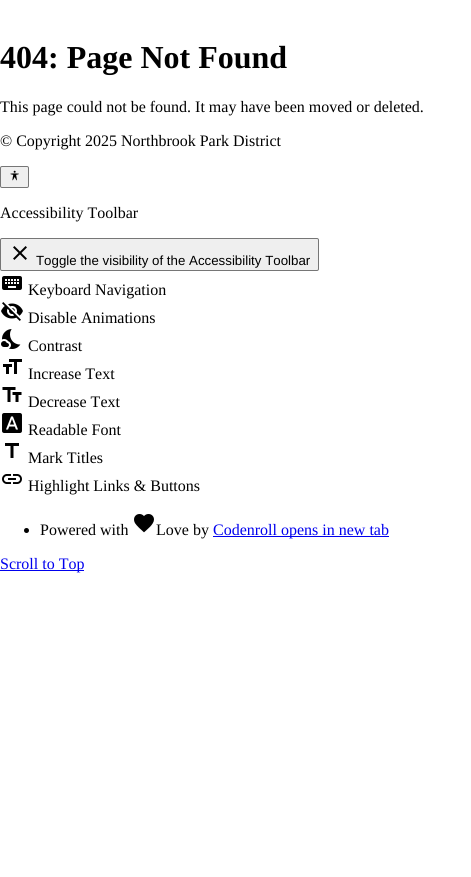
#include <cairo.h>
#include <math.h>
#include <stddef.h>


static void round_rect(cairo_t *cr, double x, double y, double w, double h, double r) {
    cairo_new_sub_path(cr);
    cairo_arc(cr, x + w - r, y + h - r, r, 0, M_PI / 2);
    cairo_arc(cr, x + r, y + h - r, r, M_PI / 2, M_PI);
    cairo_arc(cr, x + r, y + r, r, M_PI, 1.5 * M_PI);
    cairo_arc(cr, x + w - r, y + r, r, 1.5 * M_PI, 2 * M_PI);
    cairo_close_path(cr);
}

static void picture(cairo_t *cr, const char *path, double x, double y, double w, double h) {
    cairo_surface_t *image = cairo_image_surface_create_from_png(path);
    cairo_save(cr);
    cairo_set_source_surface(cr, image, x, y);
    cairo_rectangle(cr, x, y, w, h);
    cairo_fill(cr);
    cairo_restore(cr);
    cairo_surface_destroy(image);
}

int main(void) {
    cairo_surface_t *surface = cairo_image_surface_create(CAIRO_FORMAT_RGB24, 471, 877);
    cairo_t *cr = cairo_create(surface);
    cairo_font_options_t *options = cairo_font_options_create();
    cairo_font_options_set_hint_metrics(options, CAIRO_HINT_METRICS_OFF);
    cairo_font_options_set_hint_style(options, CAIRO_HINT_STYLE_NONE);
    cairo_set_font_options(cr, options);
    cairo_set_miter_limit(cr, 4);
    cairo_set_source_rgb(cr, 1, 1, 1);
    cairo_paint(cr);
    cairo_select_font_face(cr, "Liberation Serif", CAIRO_FONT_SLANT_NORMAL, CAIRO_FONT_WEIGHT_BOLD);
    cairo_set_font_size(cr, 32);
    cairo_set_source_rgb(cr, 0, 0, 0);
    cairo_move_to(cr, 0, 68);
    cairo_show_text(cr, "404: Page Not Found");
    cairo_select_font_face(cr, "Liberation Serif", CAIRO_FONT_SLANT_NORMAL, CAIRO_FONT_WEIGHT_NORMAL);
    cairo_set_font_size(cr, 16);
    cairo_move_to(cr, 0, 112);
    cairo_show_text(cr, "This page could not be found. It may have been moved or deleted.");
    cairo_move_to(cr, 0, 146);
    cairo_show_text(cr, "© Copyright 2025 Northbrook Park District");
    cairo_set_source_rgb(cr, 0.937, 0.937, 0.937);
    round_rect(cr, 0.5, 166.5, 28, 21, 1.5);
    cairo_fill_preserve(cr);
    cairo_set_source_rgb(cr, 0.463, 0.463, 0.463);
    cairo_set_line_width(cr, 1);
    cairo_stroke(cr);
    picture(cr, "img1.png", 10, 170, 9, 11);
    cairo_set_source_rgb(cr, 0, 0, 0);
    cairo_move_to(cr, 0, 218);
    cairo_show_text(cr, "Accessibility Toolbar");
    cairo_set_source_rgb(cr, 0.937, 0.937, 0.937);
    round_rect(cr, 0.5, 238.5, 318, 32, 1.5);
    cairo_fill_preserve(cr);
    cairo_set_source_rgb(cr, 0.463, 0.463, 0.463);
    cairo_stroke(cr);
    picture(cr, "img2.png", 13, 246, 14, 14);
    cairo_select_font_face(cr, "Liberation Sans", CAIRO_FONT_SLANT_NORMAL, CAIRO_FONT_WEIGHT_NORMAL);
    cairo_set_font_size(cr, 13.3);
    cairo_set_source_rgb(cr, 0, 0, 0);
    cairo_move_to(cr, 36, 265);
    cairo_show_text(cr, "Toggle the visibility of the Accessibility Toolbar");
    picture(cr, "img3.png", 2, 276, 20, 14);
    cairo_select_font_face(cr, "Liberation Serif", CAIRO_FONT_SLANT_NORMAL, CAIRO_FONT_WEIGHT_NORMAL);
    cairo_set_font_size(cr, 16);
    cairo_move_to(cr, 28, 295);
    cairo_show_text(cr, "Keyboard Navigation");
    picture(cr, "img4.png", 1, 302, 22, 19);
    cairo_move_to(cr, 28, 323);
    cairo_show_text(cr, "Disable Animations");
    picture(cr, "img5.png", 1, 329, 20, 20);
    cairo_move_to(cr, 28, 351);
    cairo_show_text(cr, "Contrast");
    picture(cr, "img6.png", 3, 359, 19, 15);
    cairo_move_to(cr, 28, 379);
    cairo_show_text(cr, "Increase Text");
    picture(cr, "img7.png", 2, 387, 20, 15);
    cairo_move_to(cr, 28, 407);
    cairo_show_text(cr, "Decrease Text");
    picture(cr, "img8.png", 2, 413, 20, 20);
    cairo_move_to(cr, 28, 435);
    cairo_show_text(cr, "Readable Font");
    picture(cr, "img9.png", 5, 443, 14, 15);
    cairo_move_to(cr, 28, 463);
    cairo_show_text(cr, "Mark Titles");
    picture(cr, "img10.png", 2, 474, 20, 10);
    cairo_move_to(cr, 28, 491);
    cairo_show_text(cr, "Highlight Links & Buttons");
    cairo_new_path(cr);
    cairo_arc(cr, 26.5, 530.5, 2.5, 0, 2 * M_PI);
    cairo_fill(cr);
    cairo_move_to(cr, 40, 535);
    cairo_show_text(cr, "Powered with");
    picture(cr, "img11.png", 134, 514, 20, 19);
    cairo_move_to(cr, 156, 535);
    cairo_show_text(cr, "Love by");
    cairo_set_source_rgb(cr, 0, 0, 0.933);
    cairo_rectangle(cr, 213, 536, 176, 1);
    cairo_fill(cr);
    cairo_move_to(cr, 213, 535);
    cairo_show_text(cr, "Codenroll opens in new tab");
    cairo_rectangle(cr, 0, 570, 84, 1);
    cairo_fill(cr);
    cairo_move_to(cr, 0, 569);
    cairo_show_text(cr, "Scroll to Top");
    cairo_surface_write_to_png(surface, "page.png");
    cairo_font_options_destroy(options);
    cairo_destroy(cr);
    cairo_surface_destroy(surface);
    return 0;
}
